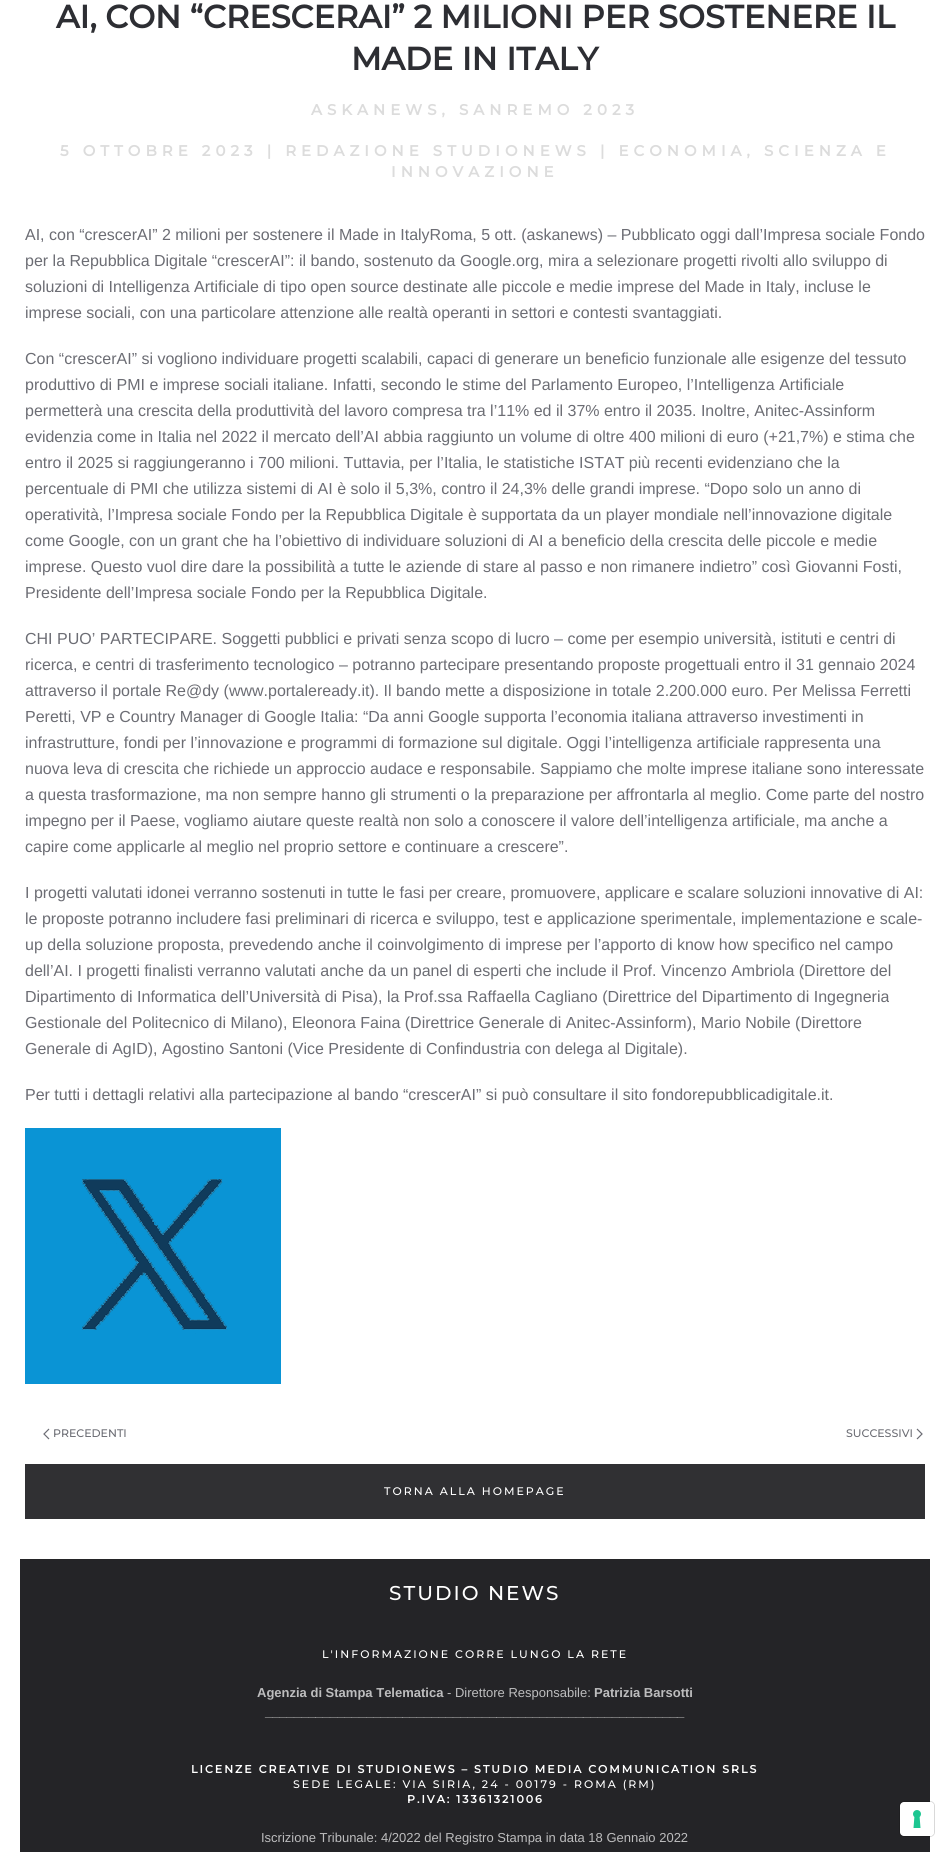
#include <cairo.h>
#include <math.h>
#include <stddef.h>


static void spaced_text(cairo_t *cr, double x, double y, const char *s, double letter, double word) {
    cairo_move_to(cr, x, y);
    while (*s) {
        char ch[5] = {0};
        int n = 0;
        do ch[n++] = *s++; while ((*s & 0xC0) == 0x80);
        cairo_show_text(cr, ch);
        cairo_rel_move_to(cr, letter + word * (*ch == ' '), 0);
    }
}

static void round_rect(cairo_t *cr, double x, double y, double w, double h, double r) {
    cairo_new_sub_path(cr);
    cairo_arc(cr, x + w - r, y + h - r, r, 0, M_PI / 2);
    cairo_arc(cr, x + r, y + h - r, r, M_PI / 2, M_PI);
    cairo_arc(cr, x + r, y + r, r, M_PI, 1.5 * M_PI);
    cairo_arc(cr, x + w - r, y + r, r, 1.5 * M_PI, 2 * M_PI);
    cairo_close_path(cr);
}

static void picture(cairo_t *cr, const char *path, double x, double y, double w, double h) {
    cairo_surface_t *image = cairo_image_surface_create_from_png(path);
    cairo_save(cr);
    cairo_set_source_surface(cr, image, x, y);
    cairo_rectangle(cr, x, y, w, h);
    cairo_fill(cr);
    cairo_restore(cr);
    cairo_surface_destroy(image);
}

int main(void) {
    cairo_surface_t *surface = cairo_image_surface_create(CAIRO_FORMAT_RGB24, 950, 1852);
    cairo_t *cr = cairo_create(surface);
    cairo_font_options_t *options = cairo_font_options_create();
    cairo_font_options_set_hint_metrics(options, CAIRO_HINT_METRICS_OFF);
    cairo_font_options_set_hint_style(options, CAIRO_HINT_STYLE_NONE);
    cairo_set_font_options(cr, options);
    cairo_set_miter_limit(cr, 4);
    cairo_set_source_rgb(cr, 1, 1, 1);
    cairo_paint(cr);
    cairo_select_font_face(cr, "Montserrat", CAIRO_FONT_SLANT_NORMAL, CAIRO_FONT_WEIGHT_BOLD);
    cairo_set_font_size(cr, 32.05);
    cairo_set_source_rgb(cr, 0.176, 0.18, 0.2);
    cairo_move_to(cr, 56, 28);
    cairo_show_text(cr, "AI, CON “CRESCERAI” 2 MILIONI PER SOSTENERE IL");
    cairo_move_to(cr, 351, 70);
    cairo_show_text(cr, "MADE IN ITALY");
    cairo_set_font_size(cr, 15);
    cairo_set_source_rgb(cr, 0.863, 0.863, 0.863);
    spaced_text(cr, 311, 115, "ASKANEWS, SANREMO 2023", 5, 0);
    spaced_text(cr, 60, 156, "5 OTTOBRE 2023 | REDAZIONE STUDIONEWS | ECONOMIA, SCIENZA E", 5, 0);
    spaced_text(cr, 391, 177, "INNOVAZIONE", 5, 0);
    cairo_select_font_face(cr, "Liberation Sans", CAIRO_FONT_SLANT_NORMAL, CAIRO_FONT_WEIGHT_NORMAL);
    cairo_set_font_size(cr, 16);
    cairo_set_source_rgb(cr, 0.424, 0.427, 0.455);
    cairo_move_to(cr, 25, 240);
    cairo_show_text(cr, "AI, con “crescerAI” 2 milioni per sostenere il Made in ItalyRoma, 5 ott. (askanews) – Pubblicato oggi dall’Impresa sociale Fondo");
    cairo_move_to(cr, 25, 266);
    cairo_show_text(cr, "per la Repubblica Digitale “crescerAI”: il bando, sostenuto da Google.org, mira a selezionare progetti rivolti allo sviluppo di");
    cairo_move_to(cr, 25, 292);
    cairo_show_text(cr, "soluzioni di Intelligenza Artificiale di tipo open source destinate alle piccole e medie imprese del Made in Italy, incluse le");
    cairo_move_to(cr, 25, 318);
    cairo_show_text(cr, "imprese sociali, con una particolare attenzione alle realtà operanti in settori e contesti svantaggiati.");
    cairo_move_to(cr, 25, 364);
    cairo_show_text(cr, "Con “crescerAI” si vogliono individuare progetti scalabili, capaci di generare un beneficio funzionale alle esigenze del tessuto");
    cairo_move_to(cr, 25, 390);
    cairo_show_text(cr, "produttivo di PMI e imprese sociali italiane. Infatti, secondo le stime del Parlamento Europeo, l’Intelligenza Artificiale");
    cairo_move_to(cr, 25, 416);
    cairo_show_text(cr, "permetterà una crescita della produttività del lavoro compresa tra l’11% ed il 37% entro il 2035. Inoltre, Anitec-Assinform");
    cairo_move_to(cr, 25, 442);
    cairo_show_text(cr, "evidenzia come in Italia nel 2022 il mercato dell’AI abbia raggiunto un volume di oltre 400 milioni di euro (+21,7%) e stima che");
    cairo_move_to(cr, 25, 468);
    cairo_show_text(cr, "entro il 2025 si raggiungeranno i 700 milioni. Tuttavia, per l’Italia, le statistiche ISTAT più recenti evidenziano che la");
    cairo_move_to(cr, 25, 494);
    cairo_show_text(cr, "percentuale di PMI che utilizza sistemi di AI è solo il 5,3%, contro il 24,3% delle grandi imprese. “Dopo solo un anno di");
    cairo_move_to(cr, 25, 520);
    cairo_show_text(cr, "operatività, l’Impresa sociale Fondo per la Repubblica Digitale è supportata da un player mondiale nell’innovazione digitale");
    cairo_move_to(cr, 25, 546);
    cairo_show_text(cr, "come Google, con un grant che ha l’obiettivo di individuare soluzioni di AI a beneficio della crescita delle piccole e medie");
    cairo_move_to(cr, 25, 572);
    cairo_show_text(cr, "imprese. Questo vuol dire dare la possibilità a tutte le aziende di stare al passo e non rimanere indietro” così Giovanni Fosti,");
    cairo_move_to(cr, 25, 598);
    cairo_show_text(cr, "Presidente dell’Impresa sociale Fondo per la Repubblica Digitale.");
    cairo_move_to(cr, 25, 644);
    cairo_show_text(cr, "CHI PUO’ PARTECIPARE. Soggetti pubblici e privati senza scopo di lucro – come per esempio università, istituti e centri di");
    cairo_move_to(cr, 25, 670);
    cairo_show_text(cr, "ricerca, e centri di trasferimento tecnologico – potranno partecipare presentando proposte progettuali entro il 31 gennaio 2024");
    cairo_move_to(cr, 25, 696);
    cairo_show_text(cr, "attraverso il portale Re@dy (www.portaleready.it). Il bando mette a disposizione in totale 2.200.000 euro. Per Melissa Ferretti");
    cairo_move_to(cr, 25, 722);
    cairo_show_text(cr, "Peretti, VP e Country Manager di Google Italia: “Da anni Google supporta l’economia italiana attraverso investimenti in");
    cairo_move_to(cr, 25, 748);
    cairo_show_text(cr, "infrastrutture, fondi per l’innovazione e programmi di formazione sul digitale. Oggi l’intelligenza artificiale rappresenta una");
    cairo_move_to(cr, 25, 774);
    cairo_show_text(cr, "nuova leva di crescita che richiede un approccio audace e responsabile. Sappiamo che molte imprese italiane sono interessate");
    cairo_move_to(cr, 25, 800);
    cairo_show_text(cr, "a questa trasformazione, ma non sempre hanno gli strumenti o la preparazione per affrontarla al meglio. Come parte del nostro");
    cairo_move_to(cr, 25, 826);
    cairo_show_text(cr, "impegno per il Paese, vogliamo aiutare queste realtà non solo a conoscere il valore dell’intelligenza artificiale, ma anche a");
    cairo_move_to(cr, 25, 852);
    cairo_show_text(cr, "capire come applicarle al meglio nel proprio settore e continuare a crescere”.");
    cairo_move_to(cr, 25, 898);
    cairo_show_text(cr, "I progetti valutati idonei verranno sostenuti in tutte le fasi per creare, promuovere, applicare e scalare soluzioni innovative di AI:");
    cairo_move_to(cr, 25, 924);
    cairo_show_text(cr, "le proposte potranno includere fasi preliminari di ricerca e sviluppo, test e applicazione sperimentale, implementazione e scale-");
    cairo_move_to(cr, 25, 950);
    cairo_show_text(cr, "up della soluzione proposta, prevedendo anche il coinvolgimento di imprese per l’apporto di know how specifico nel campo");
    cairo_move_to(cr, 25, 976);
    cairo_show_text(cr, "dell’AI. I progetti finalisti verranno valutati anche da un panel di esperti che include il Prof. Vincenzo Ambriola (Direttore del");
    cairo_move_to(cr, 25, 1002);
    cairo_show_text(cr, "Dipartimento di Informatica dell’Università di Pisa), la Prof.ssa Raffaella Cagliano (Direttrice del Dipartimento di Ingegneria");
    cairo_move_to(cr, 25, 1028);
    cairo_show_text(cr, "Gestionale del Politecnico di Milano), Eleonora Faina (Direttrice Generale di Anitec-Assinform), Mario Nobile (Direttore");
    cairo_move_to(cr, 25, 1054);
    cairo_show_text(cr, "Generale di AgID), Agostino Santoni (Vice Presidente di Confindustria con delega al Digitale).");
    cairo_move_to(cr, 25, 1100);
    cairo_show_text(cr, "Per tutti i dettagli relativi alla partecipazione al bando “crescerAI” si può consultare il sito fondorepubblicadigitale.it.");
    picture(cr, "img1.png", 25, 1128, 256, 256);
    cairo_new_path(cr);
    cairo_move_to(cr, 49, 1429);
    cairo_line_to(cr, 44, 1434);
    cairo_line_to(cr, 49, 1439);
    cairo_set_line_width(cr, 1.2);
    cairo_stroke(cr);
    cairo_select_font_face(cr, "Montserrat Thin", CAIRO_FONT_SLANT_NORMAL, CAIRO_FONT_WEIGHT_NORMAL);
    cairo_set_font_size(cr, 11);
    cairo_move_to(cr, 53, 1437);
    cairo_show_text(cr, "PRECEDENTI");
    cairo_move_to(cr, 846, 1437);
    cairo_show_text(cr, "SUCCESSIVI");
    cairo_new_path(cr);
    cairo_move_to(cr, 917, 1429);
    cairo_line_to(cr, 922, 1434);
    cairo_line_to(cr, 917, 1439);
    cairo_stroke(cr);
    cairo_set_source_rgb(cr, 0.188, 0.188, 0.2);
    cairo_rectangle(cr, 25, 1464, 900, 55);
    cairo_fill(cr);
    cairo_set_source_rgb(cr, 1, 1, 1);
    spaced_text(cr, 384, 1495, "TORNA ALLA HOMEPAGE", 2, 0);
    cairo_set_source_rgb(cr, 0.141, 0.141, 0.153);
    cairo_rectangle(cr, 20, 1559, 910, 293);
    cairo_fill(cr);
    cairo_set_font_size(cr, 20);
    cairo_set_source_rgb(cr, 1, 1, 1);
    spaced_text(cr, 389, 1600, "STUDIO NEWS", 2, 0);
    cairo_set_font_size(cr, 11);
    spaced_text(cr, 322, 1658, "L'INFORMAZIONE CORRE LUNGO LA RETE", 2, 0);
    cairo_select_font_face(cr, "Liberation Sans", CAIRO_FONT_SLANT_NORMAL, CAIRO_FONT_WEIGHT_BOLD);
    cairo_set_font_size(cr, 13);
    cairo_set_source_rgb(cr, 0.741, 0.741, 0.745);
    cairo_move_to(cr, 257, 1697);
    cairo_show_text(cr, "Agenzia di Stampa Telematica");
    cairo_select_font_face(cr, "Liberation Sans", CAIRO_FONT_SLANT_NORMAL, CAIRO_FONT_WEIGHT_NORMAL);
    cairo_move_to(cr, 447, 1697);
    cairo_show_text(cr, "- Direttore Responsabile:");
    cairo_select_font_face(cr, "Liberation Sans", CAIRO_FONT_SLANT_NORMAL, CAIRO_FONT_WEIGHT_BOLD);
    cairo_move_to(cr, 594, 1697);
    cairo_show_text(cr, "Patrizia Barsotti");
    cairo_move_to(cr, 265, 1716);
    cairo_show_text(cr, "__________________________________________________________");
    cairo_select_font_face(cr, "Montserrat", CAIRO_FONT_SLANT_NORMAL, CAIRO_FONT_WEIGHT_BOLD);
    cairo_set_font_size(cr, 11);
    cairo_set_source_rgb(cr, 1, 1, 1);
    spaced_text(cr, 191, 1773, "LICENZE CREATIVE DI STUDIONEWS – STUDIO MEDIA COMMUNICATION SRLS", 2, 0);
    cairo_select_font_face(cr, "Montserrat Thin", CAIRO_FONT_SLANT_NORMAL, CAIRO_FONT_WEIGHT_NORMAL);
    spaced_text(cr, 293, 1788, "SEDE LEGALE: VIA SIRIA, 24 - 00179 - ROMA (RM)", 2, 0);
    cairo_select_font_face(cr, "Montserrat", CAIRO_FONT_SLANT_NORMAL, CAIRO_FONT_WEIGHT_BOLD);
    spaced_text(cr, 407, 1803, "P.IVA: 13361321006", 2, 0);
    cairo_select_font_face(cr, "Liberation Sans", CAIRO_FONT_SLANT_NORMAL, CAIRO_FONT_WEIGHT_NORMAL);
    cairo_set_font_size(cr, 13);
    cairo_set_source_rgb(cr, 0.741, 0.741, 0.745);
    cairo_move_to(cr, 261, 1842);
    cairo_show_text(cr, "Iscrizione Tribunale: 4/2022 del Registro Stampa in data 18 Gennaio 2022");
    round_rect(cr, 899.5, 1801.5, 35, 35, 4.5);
    cairo_set_source_rgba(cr, 0, 0, 0, 0.15);
    cairo_set_line_width(cr, 1);
    cairo_stroke(cr);
    cairo_set_source_rgb(cr, 1, 1, 1);
    round_rect(cr, 900, 1802, 34, 34, 4);
    cairo_fill(cr);
    picture(cr, "img2.png", 913, 1810, 8, 18);
    cairo_surface_write_to_png(surface, "page.png");
    cairo_font_options_destroy(options);
    cairo_destroy(cr);
    cairo_surface_destroy(surface);
    return 0;
}
